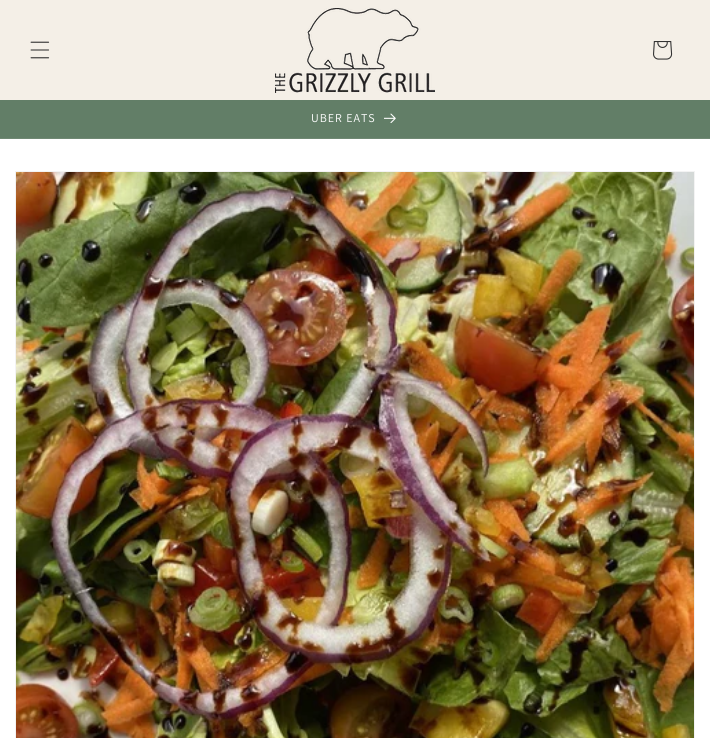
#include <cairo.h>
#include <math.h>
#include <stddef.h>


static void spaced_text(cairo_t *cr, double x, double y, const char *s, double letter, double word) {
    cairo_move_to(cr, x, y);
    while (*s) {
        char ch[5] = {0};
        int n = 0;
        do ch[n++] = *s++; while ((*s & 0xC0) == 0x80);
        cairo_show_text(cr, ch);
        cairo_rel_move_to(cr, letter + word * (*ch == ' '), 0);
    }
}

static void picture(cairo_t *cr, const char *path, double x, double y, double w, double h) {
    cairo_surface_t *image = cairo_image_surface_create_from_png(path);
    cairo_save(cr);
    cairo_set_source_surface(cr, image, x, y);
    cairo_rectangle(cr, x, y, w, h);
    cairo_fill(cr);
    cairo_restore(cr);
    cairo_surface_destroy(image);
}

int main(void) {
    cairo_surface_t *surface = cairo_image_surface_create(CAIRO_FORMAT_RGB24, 710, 738);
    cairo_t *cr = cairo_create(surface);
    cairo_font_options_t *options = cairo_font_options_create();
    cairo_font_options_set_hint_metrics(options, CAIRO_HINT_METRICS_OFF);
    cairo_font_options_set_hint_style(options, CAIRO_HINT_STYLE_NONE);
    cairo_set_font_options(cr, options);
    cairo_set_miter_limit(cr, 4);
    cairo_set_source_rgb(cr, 1, 1, 1);
    cairo_paint(cr);
    cairo_set_source_rgb(cr, 0.957, 0.937, 0.906);
    cairo_rectangle(cr, 0, 0, 710, 100);
    cairo_fill(cr);
    picture(cr, "img1.png", 30, 41, 20, 18);
    picture(cr, "img2.png", 275, 8, 160, 85);
    picture(cr, "img3.png", 653, 41, 20, 19);
    cairo_set_source_rgb(cr, 0.384, 0.494, 0.404);
    cairo_rectangle(cr, 0, 100, 710, 38);
    cairo_fill(cr);
    cairo_set_source_rgb(cr, 0.435, 0.533, 0.451);
    cairo_rectangle(cr, 0, 138, 710, 1);
    cairo_fill(cr);
    cairo_select_font_face(cr, "Assistant", CAIRO_FONT_SLANT_NORMAL, CAIRO_FONT_WEIGHT_NORMAL);
    cairo_set_font_size(cr, 12);
    cairo_set_source_rgb(cr, 1, 1, 1);
    spaced_text(cr, 311, 122, "UBER EATS", 1, 0);
    picture(cr, "img4.png", 384, 113, 12, 10);
    cairo_rectangle(cr, 15.5, 171.5, 679, 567);
    cairo_set_source_rgb(cr, 0.953, 0.953, 0.953);
    cairo_set_line_width(cr, 1);
    cairo_stroke(cr);
    picture(cr, "img5.png", 16, 172, 678, 566);
    cairo_surface_write_to_png(surface, "page.png");
    cairo_font_options_destroy(options);
    cairo_destroy(cr);
    cairo_surface_destroy(surface);
    return 0;
}
